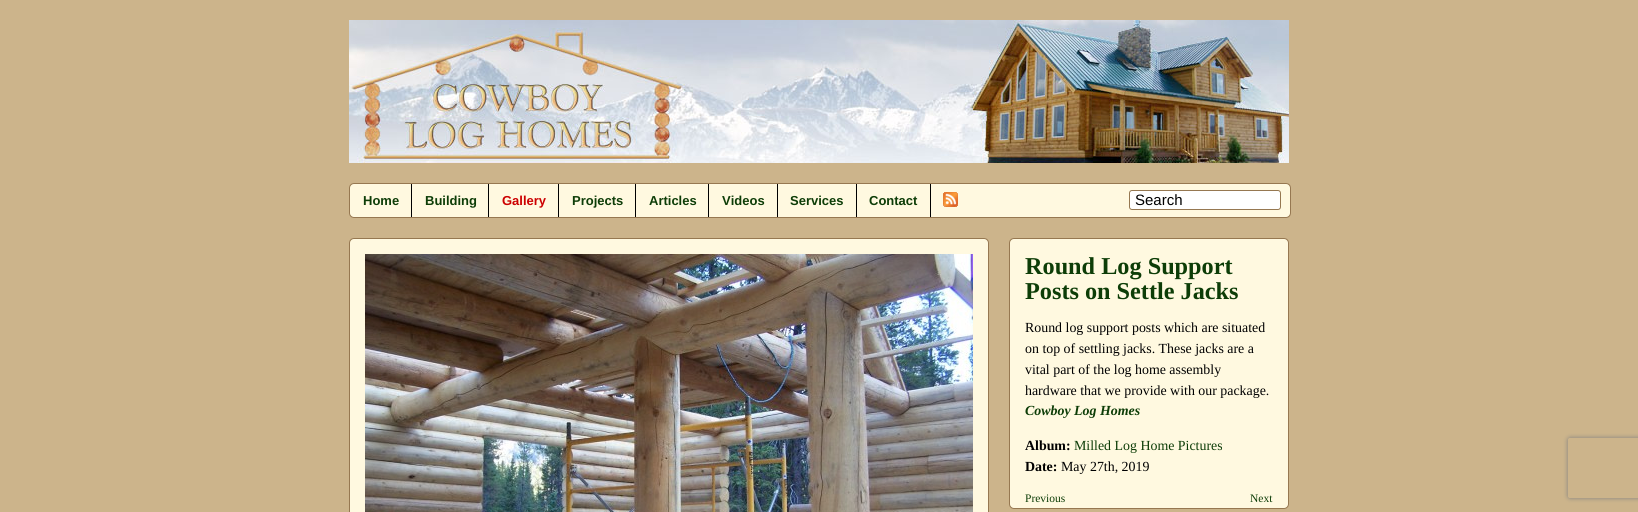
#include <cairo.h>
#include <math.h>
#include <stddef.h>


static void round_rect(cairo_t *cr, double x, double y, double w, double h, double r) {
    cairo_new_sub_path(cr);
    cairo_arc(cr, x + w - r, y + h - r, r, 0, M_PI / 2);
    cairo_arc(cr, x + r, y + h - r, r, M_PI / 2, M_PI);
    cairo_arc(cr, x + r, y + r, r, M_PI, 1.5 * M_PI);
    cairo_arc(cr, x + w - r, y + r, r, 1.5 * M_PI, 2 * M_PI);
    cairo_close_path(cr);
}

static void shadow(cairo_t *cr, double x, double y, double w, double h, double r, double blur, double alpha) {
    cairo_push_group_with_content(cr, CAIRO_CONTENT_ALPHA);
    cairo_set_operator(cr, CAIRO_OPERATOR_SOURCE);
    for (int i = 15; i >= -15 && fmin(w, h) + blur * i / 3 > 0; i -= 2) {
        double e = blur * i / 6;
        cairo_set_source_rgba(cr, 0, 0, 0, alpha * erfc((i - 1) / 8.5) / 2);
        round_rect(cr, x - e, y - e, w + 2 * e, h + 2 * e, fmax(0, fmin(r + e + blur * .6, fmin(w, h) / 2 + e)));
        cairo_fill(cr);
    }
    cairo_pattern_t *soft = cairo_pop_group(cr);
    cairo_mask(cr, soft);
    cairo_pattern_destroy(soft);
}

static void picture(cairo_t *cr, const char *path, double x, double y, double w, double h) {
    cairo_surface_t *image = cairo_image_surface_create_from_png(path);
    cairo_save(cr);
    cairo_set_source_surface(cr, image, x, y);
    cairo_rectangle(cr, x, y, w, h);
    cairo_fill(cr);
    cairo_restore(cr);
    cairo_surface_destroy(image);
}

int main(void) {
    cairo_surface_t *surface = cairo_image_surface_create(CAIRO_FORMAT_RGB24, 1638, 512);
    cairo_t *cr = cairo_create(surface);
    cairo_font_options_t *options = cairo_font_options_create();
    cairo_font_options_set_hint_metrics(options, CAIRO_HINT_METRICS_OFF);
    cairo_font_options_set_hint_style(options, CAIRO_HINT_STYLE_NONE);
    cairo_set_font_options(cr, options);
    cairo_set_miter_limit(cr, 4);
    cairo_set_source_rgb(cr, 0.8, 0.706, 0.545);
    cairo_paint(cr);
    picture(cr, "img1.png", 349, 20, 940, 143);
    cairo_set_source_rgb(cr, 1, 0.973, 0.878);
    round_rect(cr, 349.5, 183.5, 941, 34, 4.5);
    cairo_fill_preserve(cr);
    cairo_set_source_rgb(cr, 0.588, 0.471, 0.318);
    cairo_set_line_width(cr, 1);
    cairo_stroke(cr);
    cairo_select_font_face(cr, "Liberation Sans", CAIRO_FONT_SLANT_NORMAL, CAIRO_FONT_WEIGHT_BOLD);
    cairo_set_font_size(cr, 13);
    cairo_set_source_rgb(cr, 0.051, 0.239, 0.031);
    cairo_move_to(cr, 363, 205);
    cairo_show_text(cr, "Home");
    cairo_set_source_rgb(cr, 0, 0, 0);
    cairo_rectangle(cr, 411, 184, 1, 33);
    cairo_fill(cr);
    cairo_set_source_rgb(cr, 0.051, 0.239, 0.031);
    cairo_move_to(cr, 425, 205);
    cairo_show_text(cr, "Building");
    cairo_set_source_rgb(cr, 0, 0, 0);
    cairo_rectangle(cr, 488, 184, 1, 33);
    cairo_fill(cr);
    cairo_set_source_rgb(cr, 0.8, 0, 0);
    cairo_move_to(cr, 502, 205);
    cairo_show_text(cr, "Gallery");
    cairo_set_source_rgb(cr, 0, 0, 0);
    cairo_rectangle(cr, 558, 184, 1, 33);
    cairo_fill(cr);
    cairo_set_source_rgb(cr, 0.051, 0.239, 0.031);
    cairo_move_to(cr, 572, 205);
    cairo_show_text(cr, "Projects");
    cairo_set_source_rgb(cr, 0, 0, 0);
    cairo_rectangle(cr, 635, 184, 1, 33);
    cairo_fill(cr);
    cairo_set_source_rgb(cr, 0.051, 0.239, 0.031);
    cairo_move_to(cr, 649, 205);
    cairo_show_text(cr, "Articles");
    cairo_set_source_rgb(cr, 0, 0, 0);
    cairo_rectangle(cr, 708, 184, 1, 33);
    cairo_fill(cr);
    cairo_set_source_rgb(cr, 0.051, 0.239, 0.031);
    cairo_move_to(cr, 722, 205);
    cairo_show_text(cr, "Videos");
    cairo_set_source_rgb(cr, 0, 0, 0);
    cairo_rectangle(cr, 777, 184, 1, 33);
    cairo_fill(cr);
    cairo_set_source_rgb(cr, 0.051, 0.239, 0.031);
    cairo_move_to(cr, 790, 205);
    cairo_show_text(cr, "Services");
    cairo_set_source_rgb(cr, 0, 0, 0);
    cairo_rectangle(cr, 856, 184, 1, 33);
    cairo_fill(cr);
    cairo_set_source_rgb(cr, 0.051, 0.239, 0.031);
    cairo_move_to(cr, 869, 205);
    cairo_show_text(cr, "Contact");
    cairo_set_source_rgb(cr, 0, 0, 0);
    cairo_rectangle(cr, 930, 184, 1, 33);
    cairo_fill(cr);
    picture(cr, "img2.png", 943, 192, 15, 15);
    cairo_set_source_rgb(cr, 1, 1, 1);
    round_rect(cr, 1129.5, 190.5, 151, 19, 2.5);
    cairo_fill_preserve(cr);
    cairo_set_source_rgb(cr, 0.588, 0.471, 0.318);
    cairo_stroke(cr);
    cairo_select_font_face(cr, "Liberation Sans", CAIRO_FONT_SLANT_NORMAL, CAIRO_FONT_WEIGHT_NORMAL);
    cairo_set_font_size(cr, 15);
    cairo_set_source_rgb(cr, 0, 0, 0);
    cairo_move_to(cr, 1135, 205);
    cairo_show_text(cr, "Search");
    cairo_set_source_rgb(cr, 1, 0.973, 0.878);
    round_rect(cr, 349.5, 238.5, 639, 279, 4.5);
    cairo_fill_preserve(cr);
    cairo_set_source_rgb(cr, 0.588, 0.471, 0.318);
    cairo_stroke(cr);
    picture(cr, "img3.png", 365, 254, 608, 258);
    cairo_set_source_rgb(cr, 1, 0.973, 0.878);
    round_rect(cr, 1009.5, 238.5, 279, 270, 4.5);
    cairo_fill_preserve(cr);
    cairo_set_source_rgb(cr, 0.588, 0.471, 0.318);
    cairo_stroke(cr);
    cairo_select_font_face(cr, "Liberation Serif", CAIRO_FONT_SLANT_NORMAL, CAIRO_FONT_WEIGHT_BOLD);
    cairo_set_font_size(cr, 24.25);
    cairo_set_source_rgb(cr, 0.051, 0.239, 0.031);
    cairo_move_to(cr, 1025, 274);
    cairo_show_text(cr, "Round Log Support");
    cairo_move_to(cr, 1025, 299);
    cairo_show_text(cr, "Posts on Settle Jacks");
    cairo_select_font_face(cr, "Liberation Serif", CAIRO_FONT_SLANT_NORMAL, CAIRO_FONT_WEIGHT_NORMAL);
    cairo_set_font_size(cr, 13.9);
    cairo_set_source_rgb(cr, 0, 0, 0);
    cairo_move_to(cr, 1025, 332);
    cairo_show_text(cr, "Round log support posts which are situated");
    cairo_move_to(cr, 1025, 353);
    cairo_show_text(cr, "on top of settling jacks. These jacks are a");
    cairo_move_to(cr, 1025, 374);
    cairo_show_text(cr, "vital part of the log home assembly");
    cairo_move_to(cr, 1025, 395);
    cairo_show_text(cr, "hardware that we provide with our package.");
    cairo_select_font_face(cr, "Liberation Serif", CAIRO_FONT_SLANT_ITALIC, CAIRO_FONT_WEIGHT_BOLD);
    cairo_set_source_rgb(cr, 0.051, 0.239, 0.031);
    cairo_move_to(cr, 1025, 415);
    cairo_show_text(cr, "Cowboy Log Homes");
    cairo_select_font_face(cr, "Liberation Serif", CAIRO_FONT_SLANT_NORMAL, CAIRO_FONT_WEIGHT_BOLD);
    cairo_set_source_rgb(cr, 0, 0, 0);
    cairo_move_to(cr, 1025, 450);
    cairo_show_text(cr, "Album:");
    cairo_select_font_face(cr, "Liberation Serif", CAIRO_FONT_SLANT_NORMAL, CAIRO_FONT_WEIGHT_NORMAL);
    cairo_set_source_rgb(cr, 0.051, 0.239, 0.031);
    cairo_move_to(cr, 1074, 450);
    cairo_show_text(cr, "Milled Log Home Pictures");
    cairo_select_font_face(cr, "Liberation Serif", CAIRO_FONT_SLANT_NORMAL, CAIRO_FONT_WEIGHT_BOLD);
    cairo_set_source_rgb(cr, 0, 0, 0);
    cairo_move_to(cr, 1025, 471);
    cairo_show_text(cr, "Date:");
    cairo_select_font_face(cr, "Liberation Serif", CAIRO_FONT_SLANT_NORMAL, CAIRO_FONT_WEIGHT_NORMAL);
    cairo_move_to(cr, 1061, 471);
    cairo_show_text(cr, "May 27th, 2019");
    cairo_set_font_size(cr, 11.5);
    cairo_set_source_rgb(cr, 0.051, 0.239, 0.031);
    cairo_move_to(cr, 1025, 502);
    cairo_show_text(cr, "Previous");
    cairo_move_to(cr, 1250, 502);
    cairo_show_text(cr, "Next");
    cairo_save(cr);
    cairo_set_fill_rule(cr, CAIRO_FILL_RULE_EVEN_ODD);
    cairo_new_path(cr);
    cairo_move_to(cr, 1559, 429);
    cairo_line_to(cr, 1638, 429);
    cairo_line_to(cr, 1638, 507);
    cairo_line_to(cr, 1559, 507);
    cairo_close_path(cr);
    cairo_move_to(cr, 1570, 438);
    cairo_line_to(cr, 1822, 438);
    cairo_curve_to(cr, 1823, 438, 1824, 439, 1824, 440);
    cairo_line_to(cr, 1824, 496);
    cairo_curve_to(cr, 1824, 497, 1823, 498, 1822, 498);
    cairo_line_to(cr, 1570, 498);
    cairo_curve_to(cr, 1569, 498, 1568, 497, 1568, 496);
    cairo_line_to(cr, 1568, 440);
    cairo_curve_to(cr, 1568, 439, 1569, 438, 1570, 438);
    cairo_close_path(cr);
    cairo_clip(cr);
    cairo_set_source_rgb(cr, 0.502, 0.502, 0.502);
    shadow(cr, 1568, 438, 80, 60, 2, 2.5, 1);
    cairo_restore(cr);
    cairo_surface_write_to_png(surface, "page.png");
    cairo_font_options_destroy(options);
    cairo_destroy(cr);
    cairo_surface_destroy(surface);
    return 0;
}
